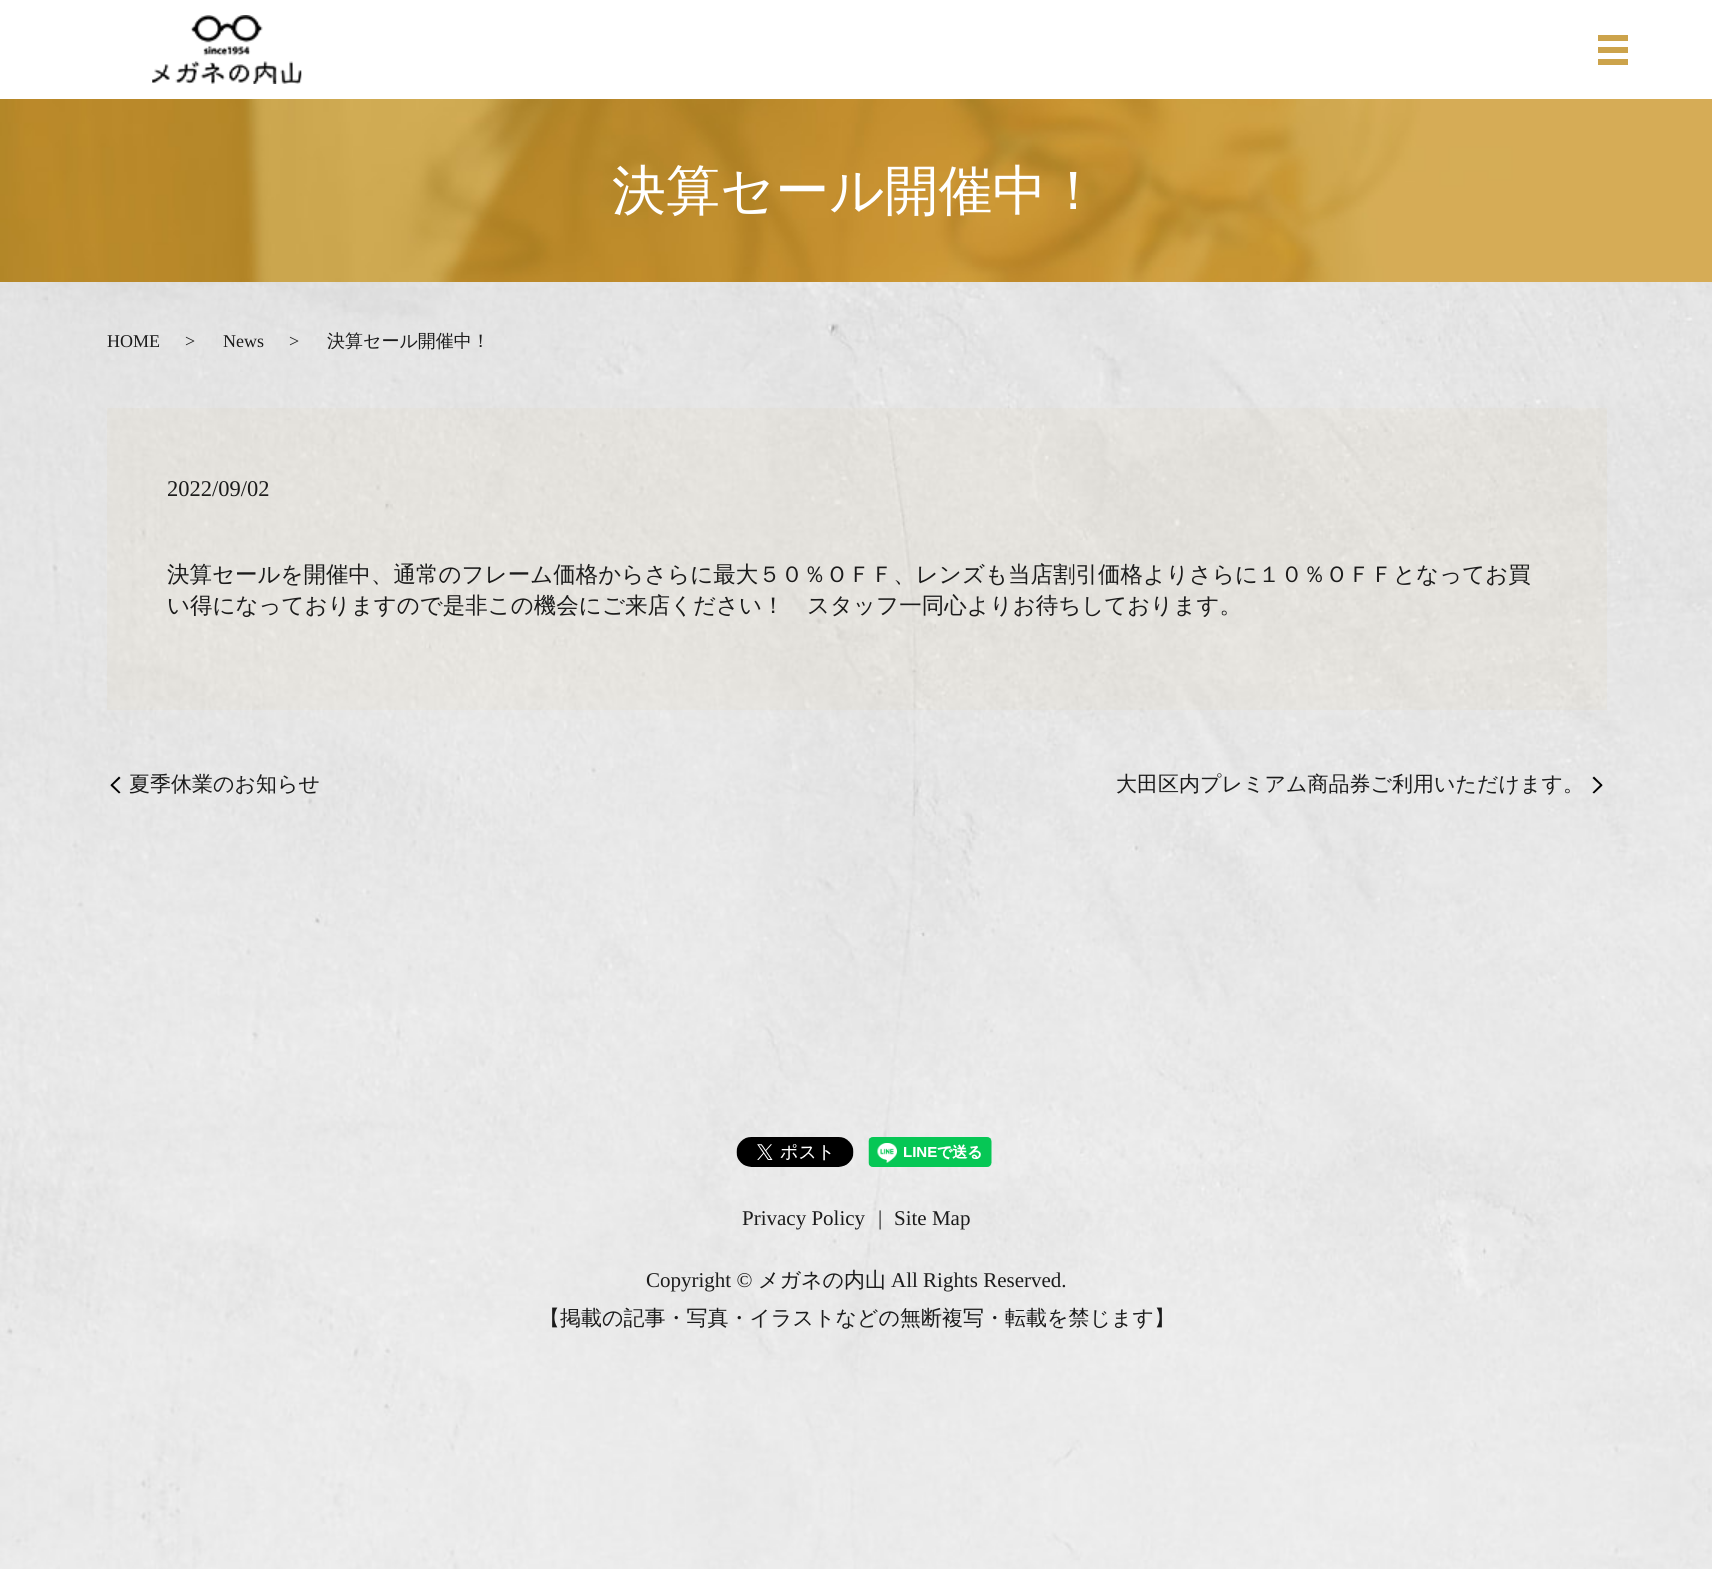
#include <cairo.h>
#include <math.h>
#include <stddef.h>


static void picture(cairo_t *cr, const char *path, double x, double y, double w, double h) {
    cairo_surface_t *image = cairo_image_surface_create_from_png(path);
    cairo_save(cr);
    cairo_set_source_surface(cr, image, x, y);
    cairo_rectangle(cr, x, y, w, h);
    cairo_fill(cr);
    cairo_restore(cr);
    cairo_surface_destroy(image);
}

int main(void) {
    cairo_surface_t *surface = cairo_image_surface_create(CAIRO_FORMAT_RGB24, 1712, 1569);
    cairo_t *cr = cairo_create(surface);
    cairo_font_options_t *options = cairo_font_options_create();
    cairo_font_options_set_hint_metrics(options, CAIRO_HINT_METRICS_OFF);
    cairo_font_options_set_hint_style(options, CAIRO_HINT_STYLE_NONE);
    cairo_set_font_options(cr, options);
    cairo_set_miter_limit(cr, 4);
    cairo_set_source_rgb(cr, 1, 1, 1);
    cairo_paint(cr);
    picture(cr, "img1.png", 0, 282, 1712, 1287);
    picture(cr, "img2.png", 152, 15, 150, 69);
    cairo_set_source_rgb(cr, 0.8, 0.639, 0.294);
    cairo_rectangle(cr, 1598, 35, 30, 6);
    cairo_fill(cr);
    cairo_rectangle(cr, 1598, 47, 30, 6);
    cairo_fill(cr);
    cairo_rectangle(cr, 1598, 59, 30, 6);
    cairo_fill(cr);
    picture(cr, "img3.png", 0, 99, 1712, 183);
    cairo_select_font_face(cr, "WenQuanYi Zen Hei Medium", CAIRO_FONT_SLANT_NORMAL, CAIRO_FONT_WEIGHT_NORMAL);
    cairo_set_font_size(cr, 54);
    cairo_set_source_rgb(cr, 1, 1, 1);
    cairo_move_to(cr, 612, 209);
    cairo_show_text(cr, "決算セール開催中！");
    cairo_select_font_face(cr, "Liberation Serif", CAIRO_FONT_SLANT_NORMAL, CAIRO_FONT_WEIGHT_NORMAL);
    cairo_set_font_size(cr, 18);
    cairo_set_source_rgb(cr, 0.106, 0.106, 0.106);
    cairo_move_to(cr, 107, 347);
    cairo_show_text(cr, "HOME");
    cairo_move_to(cr, 185, 347);
    cairo_show_text(cr, ">");
    cairo_move_to(cr, 223, 347);
    cairo_show_text(cr, "News");
    cairo_move_to(cr, 289, 347);
    cairo_show_text(cr, ">");
    cairo_select_font_face(cr, "WenQuanYi Zen Hei Medium", CAIRO_FONT_SLANT_NORMAL, CAIRO_FONT_WEIGHT_NORMAL);
    cairo_move_to(cr, 327, 347);
    cairo_show_text(cr, "決算セール開催中！");
    cairo_set_source_rgba(cr, 0.8, 0.639, 0.294, 0.05);
    cairo_rectangle(cr, 107, 408, 1500, 302);
    cairo_fill(cr);
    cairo_select_font_face(cr, "Liberation Serif", CAIRO_FONT_SLANT_NORMAL, CAIRO_FONT_WEIGHT_NORMAL);
    cairo_set_font_size(cr, 22.5);
    cairo_set_source_rgb(cr, 0.106, 0.106, 0.106);
    cairo_move_to(cr, 167, 496);
    cairo_show_text(cr, "2022/09/02");
    cairo_select_font_face(cr, "WenQuanYi Zen Hei Medium", CAIRO_FONT_SLANT_NORMAL, CAIRO_FONT_WEIGHT_NORMAL);
    cairo_move_to(cr, 167, 582);
    cairo_show_text(cr, "決算セールを開催中、通常のフレーム価格からさらに最大５０％ＯＦＦ、レンズも当店割引価格よりさらに１０％ＯＦＦとなってお買");
    cairo_move_to(cr, 167, 613);
    cairo_show_text(cr, "い得になっておりますので是非この機会にご来店ください！　スタッフ一同心よりお待ちしております。");
    cairo_set_source_rgb(cr, 0, 0, 0);
    cairo_new_path(cr);
    cairo_move_to(cr, 110.5, 785);
    cairo_line_to(cr, 119, 776.5);
    cairo_line_to(cr, 120.5, 778);
    cairo_line_to(cr, 112, 786);
    cairo_close_path(cr);
    cairo_fill(cr);
    cairo_set_font_size(cr, 21);
    cairo_set_source_rgb(cr, 0.106, 0.106, 0.106);
    cairo_move_to(cr, 129, 791);
    cairo_show_text(cr, "夏季休業のお知らせ");
    cairo_set_source_rgb(cr, 0, 0, 0);
    cairo_new_path(cr);
    cairo_move_to(cr, 119, 793.5);
    cairo_line_to(cr, 110.5, 785.5);
    cairo_line_to(cr, 112, 784);
    cairo_line_to(cr, 120.5, 792.5);
    cairo_close_path(cr);
    cairo_fill(cr);
    cairo_set_source_rgb(cr, 0.106, 0.106, 0.106);
    cairo_move_to(cr, 1116, 791);
    cairo_show_text(cr, "大田区内プレミアム商品券ご利用いただけます。");
    cairo_set_source_rgb(cr, 0, 0, 0);
    cairo_new_path(cr);
    cairo_move_to(cr, 1594, 776.5);
    cairo_line_to(cr, 1602.5, 785);
    cairo_line_to(cr, 1601, 786);
    cairo_line_to(cr, 1592.5, 778);
    cairo_close_path(cr);
    cairo_fill(cr);
    cairo_new_path(cr);
    cairo_move_to(cr, 1602.5, 785.5);
    cairo_line_to(cr, 1594, 793.5);
    cairo_line_to(cr, 1592.5, 792.5);
    cairo_line_to(cr, 1601, 784);
    cairo_close_path(cr);
    cairo_fill(cr);
    picture(cr, "img4.png", 736, 1137, 118, 30);
    picture(cr, "img5.png", 868, 1137, 124, 30);
    cairo_select_font_face(cr, "Liberation Serif", CAIRO_FONT_SLANT_NORMAL, CAIRO_FONT_WEIGHT_NORMAL);
    cairo_set_source_rgb(cr, 0.106, 0.106, 0.106);
    cairo_move_to(cr, 742, 1225);
    cairo_show_text(cr, "Privacy Policy");
    cairo_move_to(cr, 878, 1225);
    cairo_show_text(cr, "|");
    cairo_move_to(cr, 894, 1225);
    cairo_show_text(cr, "Site Map");
    cairo_move_to(cr, 646, 1287);
    cairo_show_text(cr, "Copyright ©");
    cairo_select_font_face(cr, "WenQuanYi Zen Hei Medium", CAIRO_FONT_SLANT_NORMAL, CAIRO_FONT_WEIGHT_NORMAL);
    cairo_move_to(cr, 758, 1287);
    cairo_show_text(cr, "メガネの内山");
    cairo_select_font_face(cr, "Liberation Serif", CAIRO_FONT_SLANT_NORMAL, CAIRO_FONT_WEIGHT_NORMAL);
    cairo_move_to(cr, 891, 1287);
    cairo_show_text(cr, "All Rights Reserved.");
    cairo_select_font_face(cr, "WenQuanYi Zen Hei Medium", CAIRO_FONT_SLANT_NORMAL, CAIRO_FONT_WEIGHT_NORMAL);
    cairo_move_to(cr, 539, 1325);
    cairo_show_text(cr, "【掲載の記事・写真・イラストなどの無断複写・転載を禁じます】");
    cairo_surface_write_to_png(surface, "page.png");
    cairo_font_options_destroy(options);
    cairo_destroy(cr);
    cairo_surface_destroy(surface);
    return 0;
}
